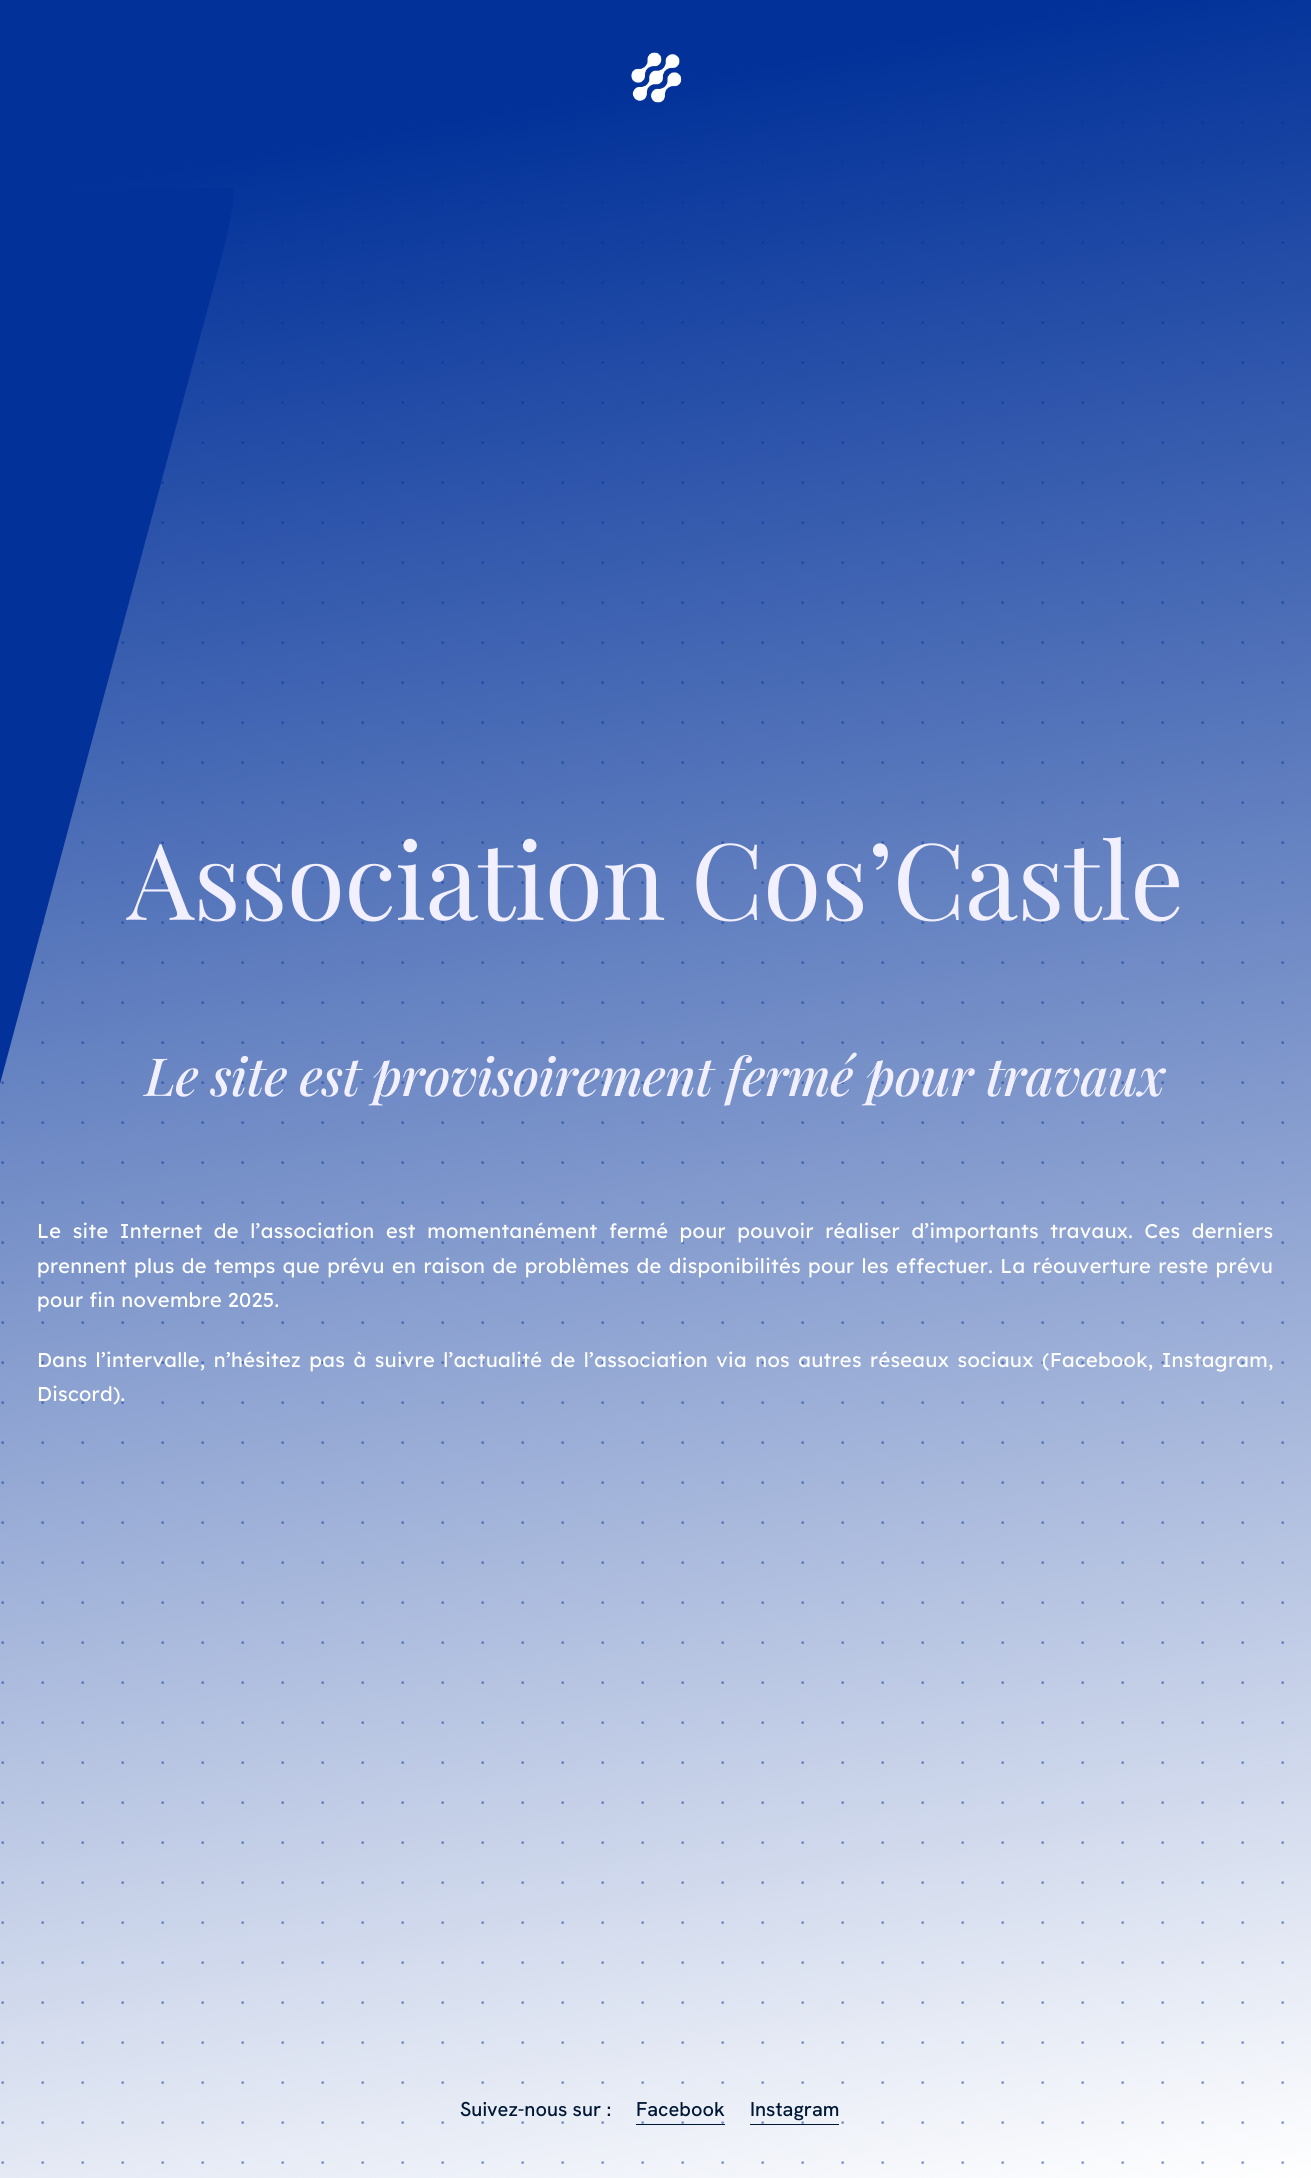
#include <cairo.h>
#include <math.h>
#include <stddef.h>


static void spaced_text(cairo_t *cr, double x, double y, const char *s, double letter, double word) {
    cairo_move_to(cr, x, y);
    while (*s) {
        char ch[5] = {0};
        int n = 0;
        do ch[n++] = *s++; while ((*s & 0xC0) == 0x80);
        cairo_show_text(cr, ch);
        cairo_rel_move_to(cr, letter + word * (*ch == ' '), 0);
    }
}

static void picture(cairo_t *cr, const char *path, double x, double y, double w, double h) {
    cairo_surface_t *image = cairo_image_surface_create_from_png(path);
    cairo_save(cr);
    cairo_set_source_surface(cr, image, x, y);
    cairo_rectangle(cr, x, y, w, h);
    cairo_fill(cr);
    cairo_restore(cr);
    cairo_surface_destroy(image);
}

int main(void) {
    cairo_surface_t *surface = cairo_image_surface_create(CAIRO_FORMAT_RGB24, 1311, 2178);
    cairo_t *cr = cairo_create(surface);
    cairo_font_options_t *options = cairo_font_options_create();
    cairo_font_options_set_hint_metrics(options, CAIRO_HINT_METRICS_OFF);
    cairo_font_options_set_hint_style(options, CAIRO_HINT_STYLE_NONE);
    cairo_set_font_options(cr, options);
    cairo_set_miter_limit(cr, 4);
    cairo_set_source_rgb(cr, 1, 1, 1);
    cairo_paint(cr);
    picture(cr, "img1.png", 0, 0, 1311, 2178);
    picture(cr, "img2.png", 1, 82, 1283, 2082);
    picture(cr, "img3.png", 0, 188, 234, 896);
    picture(cr, "img4.png", 631, 52, 51, 51);
    cairo_select_font_face(cr, "Playfair Display", CAIRO_FONT_SLANT_NORMAL, CAIRO_FONT_WEIGHT_NORMAL);
    cairo_set_font_size(cr, 106.25);
    cairo_set_source_rgb(cr, 0.949, 0.941, 1);
    spaced_text(cr, 127, 920, "Association Cos’Castle", -0.75, 0);
    cairo_select_font_face(cr, "Playfair Display Medium", CAIRO_FONT_SLANT_ITALIC, CAIRO_FONT_WEIGHT_NORMAL);
    cairo_set_font_size(cr, 52.5);
    spaced_text(cr, 145, 1096, "Le site est provisoirement fermé pour travaux", -0.55, 0);
    cairo_select_font_face(cr, "Lexend", CAIRO_FONT_SLANT_NORMAL, CAIRO_FONT_WEIGHT_NORMAL);
    cairo_set_font_size(cr, 20);
    cairo_set_source_rgb(cr, 1, 1, 1);
    spaced_text(cr, 37, 1238, "Le site Internet de l’association est momentanément fermé pour pouvoir réaliser d’importants travaux. Ces derniers", 0.3, 5.5);
    spaced_text(cr, 37, 1273, "prennent plus de temps que prévu en raison de problèmes de disponibilités pour les effectuer. La réouverture reste prévu", 0.3, 1.3);
    spaced_text(cr, 37, 1307, "pour fin novembre 2025.", 0.3, 0);
    spaced_text(cr, 37, 1367, "Dans l’intervalle, n’hésitez pas à suivre l’actualité de l’association via nos autres réseaux sociaux (Facebook, Instagram,", 0.3, 2.4);
    spaced_text(cr, 37, 1401, "Discord).", 0.3, 0);
    cairo_select_font_face(cr, "Hanken Grotesk Medium", CAIRO_FONT_SLANT_NORMAL, CAIRO_FONT_WEIGHT_NORMAL);
    cairo_set_source_rgb(cr, 0, 0.094, 0.208);
    cairo_move_to(cr, 460, 2116);
    cairo_show_text(cr, "Suivez-nous sur :");
    cairo_move_to(cr, 636, 2116);
    cairo_show_text(cr, "Facebook");
    cairo_rectangle(cr, 636, 2124, 89, 1);
    cairo_fill(cr);
    cairo_move_to(cr, 750, 2116);
    cairo_show_text(cr, "Instagram");
    cairo_rectangle(cr, 750, 2124, 89, 1);
    cairo_fill(cr);
    cairo_surface_write_to_png(surface, "page.png");
    cairo_font_options_destroy(options);
    cairo_destroy(cr);
    cairo_surface_destroy(surface);
    return 0;
}
